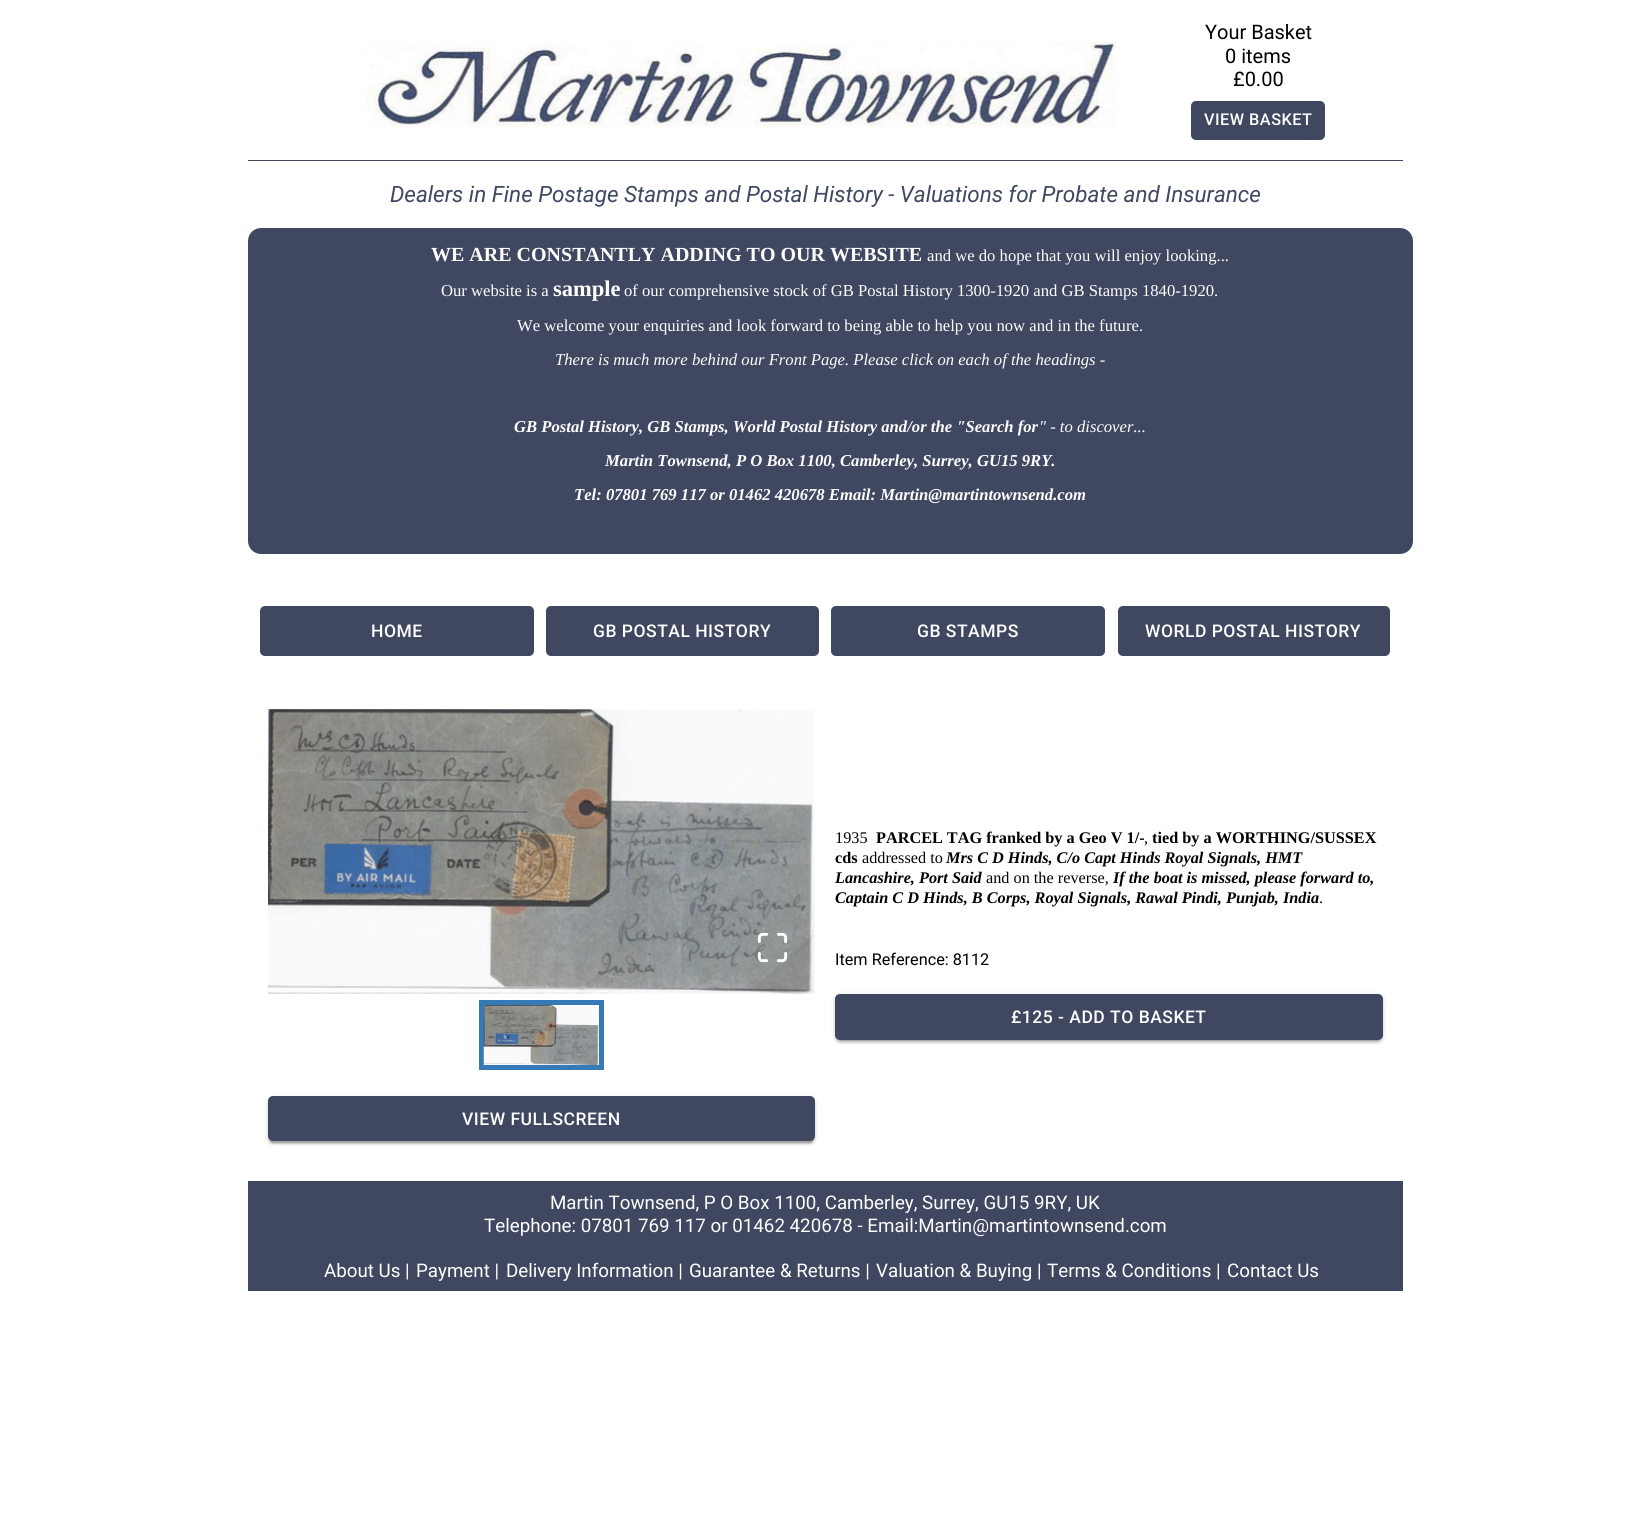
#include <cairo.h>
#include <math.h>
#include <stddef.h>


static void spaced_text(cairo_t *cr, double x, double y, const char *s, double letter, double word) {
    cairo_move_to(cr, x, y);
    while (*s) {
        char ch[5] = {0};
        int n = 0;
        do ch[n++] = *s++; while ((*s & 0xC0) == 0x80);
        cairo_show_text(cr, ch);
        cairo_rel_move_to(cr, letter + word * (*ch == ' '), 0);
    }
}

static void round_rect(cairo_t *cr, double x, double y, double w, double h, double r) {
    cairo_new_sub_path(cr);
    cairo_arc(cr, x + w - r, y + h - r, r, 0, M_PI / 2);
    cairo_arc(cr, x + r, y + h - r, r, M_PI / 2, M_PI);
    cairo_arc(cr, x + r, y + r, r, M_PI, 1.5 * M_PI);
    cairo_arc(cr, x + w - r, y + r, r, 1.5 * M_PI, 2 * M_PI);
    cairo_close_path(cr);
}

static void shadow(cairo_t *cr, double x, double y, double w, double h, double r, double blur, double alpha) {
    cairo_push_group_with_content(cr, CAIRO_CONTENT_ALPHA);
    cairo_set_operator(cr, CAIRO_OPERATOR_SOURCE);
    for (int i = 15; i >= -15 && fmin(w, h) + blur * i / 3 > 0; i -= 2) {
        double e = blur * i / 6;
        cairo_set_source_rgba(cr, 0, 0, 0, alpha * erfc((i - 1) / 8.5) / 2);
        round_rect(cr, x - e, y - e, w + 2 * e, h + 2 * e, fmax(0, fmin(r + e + blur * .6, fmin(w, h) / 2 + e)));
        cairo_fill(cr);
    }
    cairo_pattern_t *soft = cairo_pop_group(cr);
    cairo_mask(cr, soft);
    cairo_pattern_destroy(soft);
}

static void picture(cairo_t *cr, const char *path, double x, double y, double w, double h) {
    cairo_surface_t *image = cairo_image_surface_create_from_png(path);
    cairo_save(cr);
    cairo_set_source_surface(cr, image, x, y);
    cairo_rectangle(cr, x, y, w, h);
    cairo_fill(cr);
    cairo_restore(cr);
    cairo_surface_destroy(image);
}

int main(void) {
    cairo_surface_t *surface = cairo_image_surface_create(CAIRO_FORMAT_RGB24, 1650, 1529);
    cairo_t *cr = cairo_create(surface);
    cairo_font_options_t *options = cairo_font_options_create();
    cairo_font_options_set_hint_metrics(options, CAIRO_HINT_METRICS_OFF);
    cairo_font_options_set_hint_style(options, CAIRO_HINT_STYLE_NONE);
    cairo_set_font_options(cr, options);
    cairo_set_miter_limit(cr, 4);
    cairo_set_source_rgb(cr, 1, 1, 1);
    cairo_paint(cr);
    picture(cr, "img1.png", 366, 42, 751, 87);
    cairo_select_font_face(cr, "Roboto", CAIRO_FONT_SLANT_NORMAL, CAIRO_FONT_WEIGHT_NORMAL);
    cairo_set_font_size(cr, 20);
    cairo_set_source_rgb(cr, 0, 0, 0);
    cairo_move_to(cr, 1205, 39);
    cairo_show_text(cr, "Your Basket");
    cairo_move_to(cr, 1225, 63);
    cairo_show_text(cr, "0 items");
    cairo_move_to(cr, 1233, 86);
    cairo_show_text(cr, "£0.00");
    cairo_set_source_rgb(cr, 0.251, 0.278, 0.38);
    round_rect(cr, 1191, 101, 134, 39, 5);
    cairo_fill(cr);
    cairo_select_font_face(cr, "Roboto Medium", CAIRO_FONT_SLANT_NORMAL, CAIRO_FONT_WEIGHT_NORMAL);
    cairo_set_font_size(cr, 16.25);
    cairo_set_source_rgb(cr, 1, 1, 1);
    spaced_text(cr, 1204, 125, "VIEW BASKET", 0.5, 0);
    cairo_set_source_rgb(cr, 0.251, 0.278, 0.38);
    cairo_rectangle(cr, 248, 160, 1155, 1);
    cairo_fill(cr);
    cairo_select_font_face(cr, "Roboto", CAIRO_FONT_SLANT_ITALIC, CAIRO_FONT_WEIGHT_NORMAL);
    cairo_set_font_size(cr, 22.5);
    cairo_move_to(cr, 390, 202);
    cairo_show_text(cr, "Dealers in Fine Postage Stamps and Postal History - Valuations for Probate and Insurance");
    round_rect(cr, 248, 228, 1165, 326, 13);
    cairo_fill(cr);
    cairo_select_font_face(cr, "Liberation Serif", CAIRO_FONT_SLANT_NORMAL, CAIRO_FONT_WEIGHT_BOLD);
    cairo_set_font_size(cr, 20);
    cairo_set_source_rgb(cr, 1, 1, 1);
    cairo_move_to(cr, 431, 261);
    cairo_show_text(cr, "WE ARE CONSTANTLY ADDING TO OUR WEBSITE");
    cairo_select_font_face(cr, "Liberation Serif", CAIRO_FONT_SLANT_NORMAL, CAIRO_FONT_WEIGHT_NORMAL);
    cairo_set_font_size(cr, 16.65);
    cairo_move_to(cr, 927, 261);
    cairo_show_text(cr, "and we do hope that you will enjoy looking...");
    cairo_move_to(cr, 441, 296);
    cairo_show_text(cr, "Our website is a");
    cairo_select_font_face(cr, "Liberation Serif", CAIRO_FONT_SLANT_NORMAL, CAIRO_FONT_WEIGHT_BOLD);
    cairo_set_font_size(cr, 22.5);
    cairo_move_to(cr, 553, 296);
    cairo_show_text(cr, "sample");
    cairo_select_font_face(cr, "Liberation Serif", CAIRO_FONT_SLANT_NORMAL, CAIRO_FONT_WEIGHT_NORMAL);
    cairo_set_font_size(cr, 16.65);
    cairo_move_to(cr, 624, 296);
    cairo_show_text(cr, "of our comprehensive stock of GB Postal History 1300-1920 and GB Stamps 1840-1920.");
    cairo_move_to(cr, 517, 331);
    cairo_show_text(cr, "We welcome your enquiries and look forward to being able to help you now and in the future.");
    cairo_select_font_face(cr, "Liberation Serif", CAIRO_FONT_SLANT_ITALIC, CAIRO_FONT_WEIGHT_NORMAL);
    cairo_move_to(cr, 555, 365);
    cairo_show_text(cr, "There is much more behind our Front Page. Please click on each of the headings -");
    cairo_select_font_face(cr, "Liberation Serif", CAIRO_FONT_SLANT_ITALIC, CAIRO_FONT_WEIGHT_BOLD);
    cairo_move_to(cr, 514, 432);
    cairo_show_text(cr, "GB Postal History, GB Stamps, World Postal History and/or the \"Search for");
    cairo_select_font_face(cr, "Liberation Serif", CAIRO_FONT_SLANT_ITALIC, CAIRO_FONT_WEIGHT_NORMAL);
    cairo_move_to(cr, 1039, 432);
    cairo_show_text(cr, "\" - to discover...");
    cairo_select_font_face(cr, "Liberation Serif", CAIRO_FONT_SLANT_ITALIC, CAIRO_FONT_WEIGHT_BOLD);
    cairo_move_to(cr, 605, 466);
    cairo_show_text(cr, "Martin Townsend, P O Box 1100, Camberley, Surrey, GU15 9RY.");
    cairo_move_to(cr, 574, 500);
    cairo_show_text(cr, "Tel: 07801 769 117 or 01462 420678 Email: Martin@martintownsend.com");
    cairo_set_source_rgb(cr, 0.251, 0.278, 0.38);
    round_rect(cr, 260, 606, 274, 50, 5);
    cairo_fill(cr);
    cairo_select_font_face(cr, "Roboto Medium", CAIRO_FONT_SLANT_NORMAL, CAIRO_FONT_WEIGHT_NORMAL);
    cairo_set_font_size(cr, 17.5);
    cairo_set_source_rgb(cr, 1, 1, 1);
    spaced_text(cr, 371, 637, "HOME", 0.5, 0);
    cairo_set_source_rgb(cr, 0.251, 0.278, 0.38);
    round_rect(cr, 546, 606, 273, 50, 5);
    cairo_fill(cr);
    cairo_set_source_rgb(cr, 1, 1, 1);
    spaced_text(cr, 593, 637, "GB POSTAL HISTORY", 0.5, 0);
    cairo_set_source_rgb(cr, 0.251, 0.278, 0.38);
    round_rect(cr, 831, 606, 274, 50, 5);
    cairo_fill(cr);
    cairo_set_source_rgb(cr, 1, 1, 1);
    spaced_text(cr, 917, 637, "GB STAMPS", 0.5, 0);
    cairo_set_source_rgb(cr, 0.251, 0.278, 0.38);
    round_rect(cr, 1118, 606, 272, 50, 5);
    cairo_fill(cr);
    cairo_set_source_rgb(cr, 1, 1, 1);
    spaced_text(cr, 1145, 637, "WORLD POSTAL HISTORY", 0.5, 0);
    cairo_select_font_face(cr, "Liberation Serif", CAIRO_FONT_SLANT_NORMAL, CAIRO_FONT_WEIGHT_NORMAL);
    cairo_set_font_size(cr, 16.25);
    cairo_set_source_rgb(cr, 0, 0, 0);
    cairo_move_to(cr, 835, 843);
    cairo_show_text(cr, "1935");
    cairo_select_font_face(cr, "Liberation Serif", CAIRO_FONT_SLANT_NORMAL, CAIRO_FONT_WEIGHT_BOLD);
    cairo_move_to(cr, 876, 843);
    cairo_show_text(cr, "PARCEL TAG franked by a Geo V 1/-");
    cairo_select_font_face(cr, "Liberation Serif", CAIRO_FONT_SLANT_NORMAL, CAIRO_FONT_WEIGHT_NORMAL);
    cairo_move_to(cr, 1144, 843);
    cairo_show_text(cr, ",");
    cairo_select_font_face(cr, "Liberation Serif", CAIRO_FONT_SLANT_NORMAL, CAIRO_FONT_WEIGHT_BOLD);
    cairo_move_to(cr, 1152, 843);
    cairo_show_text(cr, "tied by a WORTHING/SUSSEX");
    cairo_move_to(cr, 835, 863);
    cairo_show_text(cr, "cds");
    cairo_select_font_face(cr, "Liberation Serif", CAIRO_FONT_SLANT_NORMAL, CAIRO_FONT_WEIGHT_NORMAL);
    cairo_move_to(cr, 862, 863);
    cairo_show_text(cr, "addressed to");
    cairo_select_font_face(cr, "Liberation Serif", CAIRO_FONT_SLANT_ITALIC, CAIRO_FONT_WEIGHT_BOLD);
    cairo_move_to(cr, 946, 863);
    cairo_show_text(cr, "Mrs C D Hinds, C/o Capt Hinds Royal Signals, HMT");
    cairo_move_to(cr, 835, 883);
    cairo_show_text(cr, "Lancashire, Port Said");
    cairo_select_font_face(cr, "Liberation Serif", CAIRO_FONT_SLANT_NORMAL, CAIRO_FONT_WEIGHT_NORMAL);
    cairo_move_to(cr, 986, 883);
    cairo_show_text(cr, "and on the reverse,");
    cairo_select_font_face(cr, "Liberation Serif", CAIRO_FONT_SLANT_ITALIC, CAIRO_FONT_WEIGHT_BOLD);
    cairo_move_to(cr, 1113, 883);
    cairo_show_text(cr, "If the boat is missed, please forward to,");
    cairo_move_to(cr, 835, 903);
    cairo_show_text(cr, "Captain C D Hinds, B Corps, Royal Signals, Rawal Pindi, Punjab, India");
    cairo_select_font_face(cr, "Liberation Serif", CAIRO_FONT_SLANT_NORMAL, CAIRO_FONT_WEIGHT_NORMAL);
    cairo_move_to(cr, 1319, 903);
    cairo_show_text(cr, ".");
    cairo_select_font_face(cr, "Roboto", CAIRO_FONT_SLANT_NORMAL, CAIRO_FONT_WEIGHT_NORMAL);
    cairo_move_to(cr, 835, 965);
    cairo_show_text(cr, "Item Reference: 8112");
    cairo_set_source_rgb(cr, 0, 0, 0);
    shadow(cr, 835, 995, 548, 46, 5, 3, 0.12);
    shadow(cr, 835, 996, 548, 47, 5, 1, 0.14);
    shadow(cr, 838, 1000, 542, 41, 2.5, 0.5, 0.2);
    cairo_set_source_rgb(cr, 0.251, 0.278, 0.38);
    round_rect(cr, 835, 994, 548, 46, 5);
    cairo_fill(cr);
    cairo_select_font_face(cr, "Roboto Medium", CAIRO_FONT_SLANT_NORMAL, CAIRO_FONT_WEIGHT_NORMAL);
    cairo_set_font_size(cr, 17.5);
    cairo_set_source_rgb(cr, 1, 1, 1);
    spaced_text(cr, 1011, 1023, "£125 - ADD TO BASKET", 0.5, 0);
    picture(cr, "img2.png", 268, 709, 547, 285);
    picture(cr, "img3.png", 757, 932, 31, 31);
    cairo_rectangle(cr, 481.5, 1002.5, 120, 65);
    cairo_set_source_rgb(cr, 0.2, 0.478, 0.718);
    cairo_set_line_width(cr, 5);
    cairo_stroke(cr);
    picture(cr, "img4.png", 483, 1005, 116, 60);
    cairo_set_source_rgb(cr, 0, 0, 0);
    shadow(cr, 268, 1098, 547, 45, 5, 3, 0.12);
    shadow(cr, 268, 1099, 547, 45, 5, 1, 0.14);
    shadow(cr, 270, 1103, 543, 40, 2.5, 0.5, 0.2);
    cairo_set_source_rgb(cr, 0.251, 0.278, 0.38);
    round_rect(cr, 268, 1096, 547, 45, 5);
    cairo_fill(cr);
    cairo_set_source_rgb(cr, 1, 1, 1);
    spaced_text(cr, 462, 1125, "VIEW FULLSCREEN", 0.5, 0);
    cairo_set_source_rgb(cr, 0.251, 0.278, 0.38);
    cairo_rectangle(cr, 248, 1181, 1155, 110);
    cairo_fill(cr);
    cairo_select_font_face(cr, "Roboto", CAIRO_FONT_SLANT_NORMAL, CAIRO_FONT_WEIGHT_NORMAL);
    cairo_set_font_size(cr, 18.75);
    cairo_set_source_rgb(cr, 1, 1, 1);
    cairo_move_to(cr, 550, 1209);
    cairo_show_text(cr, "Martin Townsend, P O Box 1100, Camberley, Surrey, GU15 9RY, UK");
    cairo_move_to(cr, 484, 1232);
    cairo_show_text(cr, "Telephone: 07801 769 117 or 01462 420678 - Email:Martin@martintownsend.com");
    cairo_move_to(cr, 324, 1277);
    cairo_show_text(cr, "About Us |");
    cairo_move_to(cr, 416, 1277);
    cairo_show_text(cr, "Payment |");
    cairo_move_to(cr, 506, 1277);
    cairo_show_text(cr, "Delivery Information |");
    cairo_move_to(cr, 689, 1277);
    cairo_show_text(cr, "Guarantee & Returns |");
    cairo_move_to(cr, 876, 1277);
    cairo_show_text(cr, "Valuation & Buying |");
    cairo_move_to(cr, 1047, 1277);
    cairo_show_text(cr, "Terms & Conditions |");
    cairo_move_to(cr, 1227, 1277);
    cairo_show_text(cr, "Contact Us");
    cairo_surface_write_to_png(surface, "page.png");
    cairo_font_options_destroy(options);
    cairo_destroy(cr);
    cairo_surface_destroy(surface);
    return 0;
}
